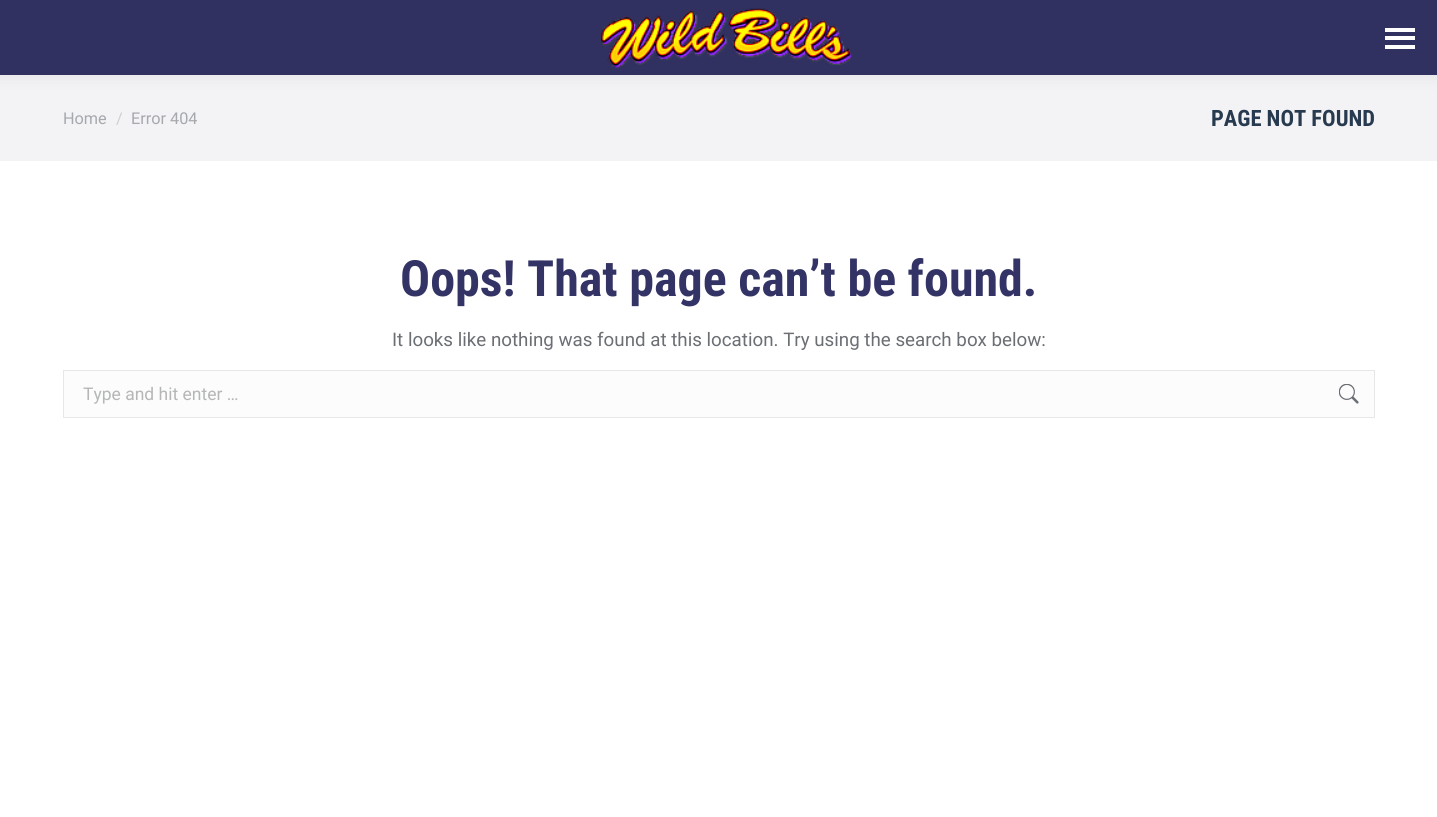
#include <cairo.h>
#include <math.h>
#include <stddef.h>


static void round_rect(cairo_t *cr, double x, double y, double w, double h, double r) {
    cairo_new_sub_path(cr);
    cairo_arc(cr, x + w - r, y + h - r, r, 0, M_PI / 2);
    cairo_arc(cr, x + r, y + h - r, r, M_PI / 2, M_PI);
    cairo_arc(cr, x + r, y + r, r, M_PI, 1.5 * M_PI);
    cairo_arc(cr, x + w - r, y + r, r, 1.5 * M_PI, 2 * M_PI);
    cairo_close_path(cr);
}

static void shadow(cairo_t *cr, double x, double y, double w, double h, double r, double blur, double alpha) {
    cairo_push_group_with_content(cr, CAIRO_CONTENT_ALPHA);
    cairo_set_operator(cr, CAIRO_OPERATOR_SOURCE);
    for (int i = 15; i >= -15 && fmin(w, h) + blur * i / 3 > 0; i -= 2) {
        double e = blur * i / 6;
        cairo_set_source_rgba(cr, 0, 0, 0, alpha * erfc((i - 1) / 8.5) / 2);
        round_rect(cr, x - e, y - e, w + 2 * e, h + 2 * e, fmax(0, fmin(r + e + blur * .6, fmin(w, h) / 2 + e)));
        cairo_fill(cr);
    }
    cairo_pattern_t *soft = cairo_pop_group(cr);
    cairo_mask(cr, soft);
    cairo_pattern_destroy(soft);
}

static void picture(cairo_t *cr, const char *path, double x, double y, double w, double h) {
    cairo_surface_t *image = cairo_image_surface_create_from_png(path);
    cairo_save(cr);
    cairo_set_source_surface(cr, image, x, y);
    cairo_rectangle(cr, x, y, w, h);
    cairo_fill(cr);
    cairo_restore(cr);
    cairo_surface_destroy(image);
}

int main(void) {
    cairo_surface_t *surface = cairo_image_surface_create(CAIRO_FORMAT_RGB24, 1437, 817);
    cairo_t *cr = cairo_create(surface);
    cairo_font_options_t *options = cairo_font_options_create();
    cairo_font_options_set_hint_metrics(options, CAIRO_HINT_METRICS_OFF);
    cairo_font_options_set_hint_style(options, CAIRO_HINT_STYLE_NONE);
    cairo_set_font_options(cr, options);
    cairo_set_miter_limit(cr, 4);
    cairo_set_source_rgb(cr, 1, 1, 1);
    cairo_paint(cr);
    cairo_set_source_rgb(cr, 0.953, 0.953, 0.961);
    cairo_rectangle(cr, 0, 75, 1437, 86);
    cairo_fill(cr);
    cairo_set_source_rgb(cr, 0, 0, 0);
    shadow(cr, -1, -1, 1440, 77, 0, 9.5, 0.07);
    cairo_set_source_rgb(cr, 0.188, 0.188, 0.38);
    cairo_rectangle(cr, 0, 0, 1437, 75);
    cairo_fill(cr);
    picture(cr, "img1.png", 601, 8, 251, 60);
    cairo_set_source_rgb(cr, 1, 1, 1);
    cairo_rectangle(cr, 1385, 28, 30, 4);
    cairo_fill(cr);
    cairo_rectangle(cr, 1385, 36, 30, 4);
    cairo_fill(cr);
    cairo_rectangle(cr, 1385, 45, 30, 4);
    cairo_fill(cr);
    cairo_select_font_face(cr, "Roboto", CAIRO_FONT_SLANT_NORMAL, CAIRO_FONT_WEIGHT_NORMAL);
    cairo_set_font_size(cr, 16.25);
    cairo_set_source_rgb(cr, 0.647, 0.659, 0.675);
    cairo_move_to(cr, 63, 124);
    cairo_show_text(cr, "Home");
    cairo_set_source_rgb(cr, 0.8, 0.808, 0.82);
    cairo_move_to(cr, 116, 124);
    cairo_show_text(cr, "/");
    cairo_set_source_rgb(cr, 0.647, 0.659, 0.675);
    cairo_move_to(cr, 131, 124);
    cairo_show_text(cr, "Error 404");
    cairo_select_font_face(cr, "Roboto Condensed", CAIRO_FONT_SLANT_NORMAL, CAIRO_FONT_WEIGHT_BOLD);
    cairo_set_font_size(cr, 22.5);
    cairo_set_source_rgb(cr, 0.153, 0.227, 0.31);
    cairo_move_to(cr, 1211, 126);
    cairo_show_text(cr, "PAGE NOT FOUND");
    cairo_set_font_size(cr, 50);
    cairo_set_source_rgb(cr, 0.2, 0.2, 0.4);
    cairo_move_to(cr, 400, 296);
    cairo_show_text(cr, "Oops! That page can’t be found.");
    cairo_select_font_face(cr, "Roboto", CAIRO_FONT_SLANT_NORMAL, CAIRO_FONT_WEIGHT_NORMAL);
    cairo_set_font_size(cr, 18.75);
    cairo_set_source_rgb(cr, 0.42, 0.435, 0.455);
    cairo_move_to(cr, 392, 346);
    cairo_show_text(cr, "It looks like nothing was found at this location. Try using the search box below:");
    cairo_set_source_rgb(cr, 0.988, 0.988, 0.988);
    cairo_rectangle(cr, 63.5, 370.5, 1311, 47);
    cairo_fill_preserve(cr);
    cairo_set_source_rgb(cr, 0.902, 0.906, 0.91);
    cairo_set_line_width(cr, 1);
    cairo_stroke(cr);
    cairo_set_font_size(cr, 17.5);
    cairo_set_source_rgb(cr, 0.706, 0.714, 0.722);
    cairo_move_to(cr, 83, 400);
    cairo_show_text(cr, "Type and hit enter …");
    picture(cr, "img2.png", 1339, 384, 20, 20);
    cairo_surface_write_to_png(surface, "page.png");
    cairo_font_options_destroy(options);
    cairo_destroy(cr);
    cairo_surface_destroy(surface);
    return 0;
}
